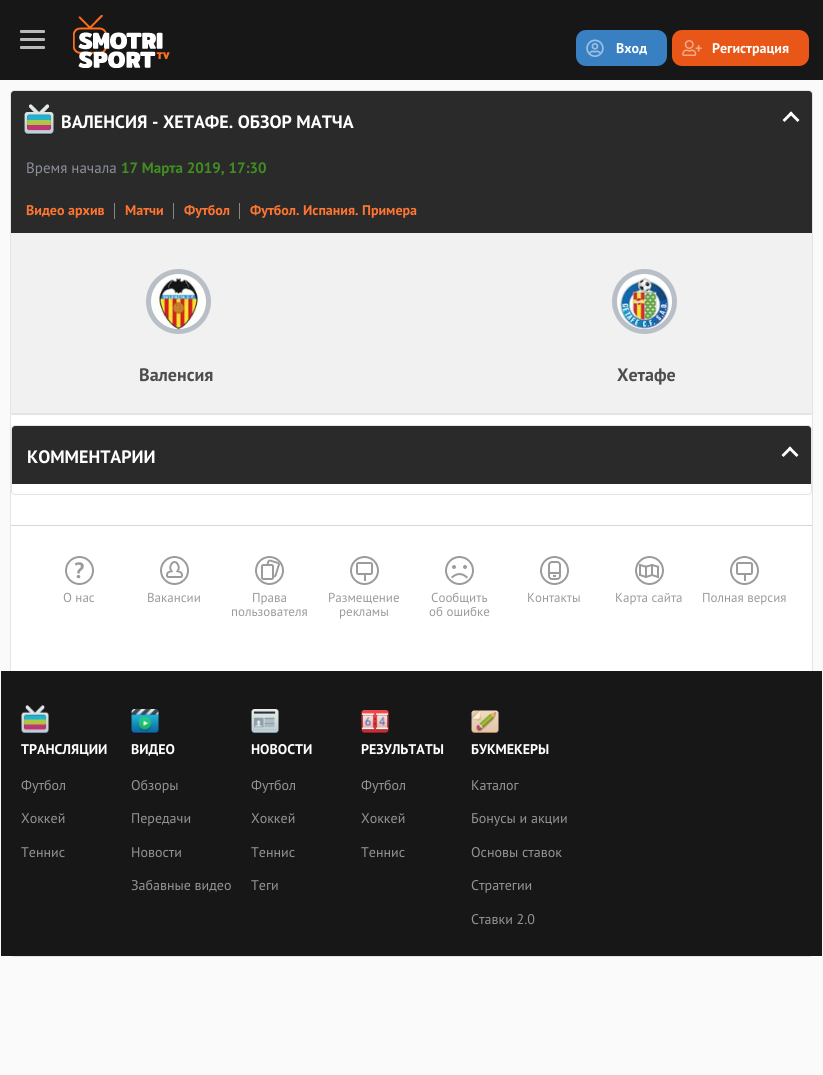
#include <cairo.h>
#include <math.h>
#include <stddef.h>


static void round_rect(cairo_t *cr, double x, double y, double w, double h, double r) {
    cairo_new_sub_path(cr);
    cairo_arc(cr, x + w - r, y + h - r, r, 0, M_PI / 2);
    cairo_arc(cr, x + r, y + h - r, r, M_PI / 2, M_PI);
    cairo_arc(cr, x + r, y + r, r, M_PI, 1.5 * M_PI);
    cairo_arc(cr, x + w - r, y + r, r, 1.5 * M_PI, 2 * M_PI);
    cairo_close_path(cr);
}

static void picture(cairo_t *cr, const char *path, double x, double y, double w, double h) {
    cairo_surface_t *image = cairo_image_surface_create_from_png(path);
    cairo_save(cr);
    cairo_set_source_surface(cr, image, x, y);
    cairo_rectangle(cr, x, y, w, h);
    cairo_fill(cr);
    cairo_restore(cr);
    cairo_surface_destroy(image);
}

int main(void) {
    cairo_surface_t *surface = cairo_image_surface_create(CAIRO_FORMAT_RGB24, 823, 1075);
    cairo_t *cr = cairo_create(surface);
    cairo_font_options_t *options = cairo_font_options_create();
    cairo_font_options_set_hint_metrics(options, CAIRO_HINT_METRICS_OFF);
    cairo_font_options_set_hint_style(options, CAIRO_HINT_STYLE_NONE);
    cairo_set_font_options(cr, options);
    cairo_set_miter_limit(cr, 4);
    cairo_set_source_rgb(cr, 0.98, 0.98, 0.98);
    cairo_paint(cr);
    cairo_set_source_rgb(cr, 0.09, 0.09, 0.09);
    cairo_rectangle(cr, 0, 0, 823, 80);
    cairo_fill(cr);
    cairo_set_source_rgb(cr, 0.729, 0.729, 0.729);
    round_rect(cr, 20, 38, 25, 3, 1);
    cairo_fill(cr);
    round_rect(cr, 20, 30, 25, 3, 1);
    cairo_fill(cr);
    round_rect(cr, 20, 46, 25, 3, 1);
    cairo_fill(cr);
    picture(cr, "img1.png", 73, 15, 97, 53);
    cairo_set_source_rgb(cr, 0.22, 0.502, 0.761);
    round_rect(cr, 576, 30, 91, 36, 10);
    cairo_fill(cr);
    picture(cr, "img2.png", 586, 39, 18, 18);
    cairo_select_font_face(cr, "PT Sans", CAIRO_FONT_SLANT_NORMAL, CAIRO_FONT_WEIGHT_BOLD);
    cairo_set_font_size(cr, 14);
    cairo_set_source_rgb(cr, 1, 1, 1);
    cairo_move_to(cr, 616, 53);
    cairo_show_text(cr, "Вход");
    cairo_set_source_rgb(cr, 0.91, 0.341, 0.09);
    round_rect(cr, 672, 30, 137, 36, 10);
    cairo_fill(cr);
    picture(cr, "img3.png", 682, 40, 20, 16);
    cairo_set_source_rgb(cr, 1, 1, 1);
    cairo_move_to(cr, 712, 53);
    cairo_show_text(cr, "Регистрация");
    round_rect(cr, 10.5, 90.5, 802, 866, 3.5);
    cairo_fill_preserve(cr);
    cairo_set_source_rgb(cr, 0.894, 0.894, 0.894);
    cairo_set_line_width(cr, 1);
    cairo_stroke(cr);
    cairo_set_source_rgb(cr, 0.165, 0.165, 0.165);
    cairo_new_path(cr);
    cairo_move_to(cr, 14, 91);
    cairo_line_to(cr, 809, 91);
    cairo_curve_to(cr, 810.5, 91, 812, 92.5, 812, 94);
    cairo_line_to(cr, 812, 149);
    cairo_line_to(cr, 11, 149);
    cairo_line_to(cr, 11, 94);
    cairo_curve_to(cr, 11, 92.5, 12.5, 91, 14, 91);
    cairo_close_path(cr);
    cairo_fill(cr);
    picture(cr, "img4.png", 24, 104, 30, 31);
    cairo_set_font_size(cr, 18);
    cairo_set_source_rgb(cr, 1, 1, 1);
    cairo_move_to(cr, 61, 128);
    cairo_show_text(cr, "ВАЛЕНСИЯ - ХЕТАФЕ. ОБЗОР МАТЧА");
    cairo_new_path(cr);
    cairo_move_to(cr, 791, 111.5);
    cairo_line_to(cr, 799.5, 120);
    cairo_line_to(cr, 797.5, 122);
    cairo_line_to(cr, 789, 113.5);
    cairo_close_path(cr);
    cairo_fill(cr);
    cairo_new_path(cr);
    cairo_move_to(cr, 791, 111.5);
    cairo_line_to(cr, 793, 113.5);
    cairo_line_to(cr, 784.5, 122);
    cairo_line_to(cr, 782.5, 120);
    cairo_close_path(cr);
    cairo_fill(cr);
    cairo_set_source_rgb(cr, 0.165, 0.165, 0.165);
    cairo_rectangle(cr, 11, 149, 801, 84);
    cairo_fill(cr);
    cairo_select_font_face(cr, "PT Sans", CAIRO_FONT_SLANT_NORMAL, CAIRO_FONT_WEIGHT_NORMAL);
    cairo_set_font_size(cr, 15);
    cairo_set_source_rgb(cr, 0.545, 0.561, 0.6);
    cairo_move_to(cr, 26, 173);
    cairo_show_text(cr, "Время начала");
    cairo_select_font_face(cr, "PT Sans", CAIRO_FONT_SLANT_NORMAL, CAIRO_FONT_WEIGHT_BOLD);
    cairo_set_source_rgb(cr, 0.255, 0.557, 0.125);
    cairo_move_to(cr, 121, 173);
    cairo_show_text(cr, "17 Марта 2019, 17:30");
    cairo_set_font_size(cr, 14);
    cairo_set_source_rgb(cr, 1, 0.459, 0.192);
    cairo_move_to(cr, 26, 215);
    cairo_show_text(cr, "Видео архив");
    cairo_set_source_rgb(cr, 0.529, 0.529, 0.529);
    cairo_rectangle(cr, 114, 203, 1, 16);
    cairo_fill(cr);
    cairo_set_source_rgb(cr, 1, 0.459, 0.192);
    cairo_move_to(cr, 125, 215);
    cairo_show_text(cr, "Матчи");
    cairo_set_source_rgb(cr, 0.529, 0.529, 0.529);
    cairo_rectangle(cr, 173, 203, 1, 16);
    cairo_fill(cr);
    cairo_set_source_rgb(cr, 1, 0.459, 0.192);
    cairo_move_to(cr, 184, 215);
    cairo_show_text(cr, "Футбол");
    cairo_set_source_rgb(cr, 0.529, 0.529, 0.529);
    cairo_rectangle(cr, 239, 203, 1, 16);
    cairo_fill(cr);
    cairo_set_source_rgb(cr, 1, 0.459, 0.192);
    cairo_move_to(cr, 250, 215);
    cairo_show_text(cr, "Футбол. Испания. Примера");
    cairo_set_source_rgb(cr, 0.945, 0.945, 0.945);
    cairo_rectangle(cr, 11, 233, 801, 180);
    cairo_fill(cr);
    cairo_set_source_rgb(cr, 1, 1, 1);
    cairo_arc(cr, 178.5, 301.5, 30, 0, 2 * M_PI);
    cairo_fill_preserve(cr);
    cairo_set_source_rgb(cr, 0.725, 0.749, 0.776);
    cairo_set_line_width(cr, 5);
    cairo_stroke(cr);
    picture(cr, "img5.png", 153, 278, 51, 51);
    cairo_set_source_rgb(cr, 1, 1, 1);
    cairo_arc(cr, 644.5, 301.5, 30, 0, 2 * M_PI);
    cairo_fill_preserve(cr);
    cairo_set_source_rgb(cr, 0.725, 0.749, 0.776);
    cairo_stroke(cr);
    picture(cr, "img6.png", 619, 278, 51, 51);
    cairo_set_font_size(cr, 18);
    cairo_set_source_rgb(cr, 0.302, 0.302, 0.302);
    cairo_move_to(cr, 139, 381);
    cairo_show_text(cr, "Валенсия");
    cairo_move_to(cr, 617, 381);
    cairo_show_text(cr, "Хетафе");
    cairo_set_source_rgb(cr, 0.894, 0.894, 0.894);
    round_rect(cr, 11, 413, 801, 2, 1);
    cairo_fill(cr);
    round_rect(cr, 11.5, 425.5, 800, 69, 3.5);
    cairo_set_line_width(cr, 1);
    cairo_stroke(cr);
    cairo_set_source_rgb(cr, 0.165, 0.165, 0.165);
    cairo_new_path(cr);
    cairo_move_to(cr, 15, 426);
    cairo_line_to(cr, 808, 426);
    cairo_curve_to(cr, 809.5, 426, 811, 427.5, 811, 429);
    cairo_line_to(cr, 811, 484);
    cairo_line_to(cr, 12, 484);
    cairo_line_to(cr, 12, 429);
    cairo_curve_to(cr, 12, 427.5, 13.5, 426, 15, 426);
    cairo_close_path(cr);
    cairo_fill(cr);
    cairo_set_source_rgb(cr, 1, 1, 1);
    cairo_move_to(cr, 27, 463);
    cairo_show_text(cr, "КОММЕНТАРИИ");
    cairo_new_path(cr);
    cairo_move_to(cr, 790, 446.5);
    cairo_line_to(cr, 798.5, 455);
    cairo_line_to(cr, 796.5, 457);
    cairo_line_to(cr, 788, 448.5);
    cairo_close_path(cr);
    cairo_fill(cr);
    cairo_new_path(cr);
    cairo_move_to(cr, 790, 446.5);
    cairo_line_to(cr, 792, 448.5);
    cairo_line_to(cr, 783.5, 457);
    cairo_line_to(cr, 781.5, 455);
    cairo_close_path(cr);
    cairo_fill(cr);
    cairo_set_source_rgb(cr, 0.839, 0.839, 0.839);
    cairo_rectangle(cr, 11, 525, 801, 1);
    cairo_fill(cr);
    picture(cr, "img7.png", 65, 556, 29, 29);
    cairo_select_font_face(cr, "PT Sans", CAIRO_FONT_SLANT_NORMAL, CAIRO_FONT_WEIGHT_NORMAL);
    cairo_set_font_size(cr, 13);
    cairo_set_source_rgb(cr, 0.608, 0.608, 0.608);
    cairo_move_to(cr, 63, 602);
    cairo_show_text(cr, "О нас");
    picture(cr, "img8.png", 160, 556, 29, 29);
    cairo_move_to(cr, 147, 602);
    cairo_show_text(cr, "Вакансии");
    picture(cr, "img9.png", 255, 556, 29, 29);
    cairo_move_to(cr, 252, 602);
    cairo_show_text(cr, "Права");
    cairo_move_to(cr, 231, 616);
    cairo_show_text(cr, "пользователя");
    picture(cr, "img10.png", 350, 556, 29, 29);
    cairo_move_to(cr, 328, 602);
    cairo_show_text(cr, "Размещение");
    cairo_move_to(cr, 339, 616);
    cairo_show_text(cr, "рекламы");
    picture(cr, "img11.png", 445, 556, 29, 29);
    cairo_move_to(cr, 431, 602);
    cairo_show_text(cr, "Сообщить");
    cairo_move_to(cr, 429, 616);
    cairo_show_text(cr, "об ошибке");
    picture(cr, "img12.png", 540, 556, 29, 29);
    cairo_move_to(cr, 527, 602);
    cairo_show_text(cr, "Контакты");
    picture(cr, "img13.png", 635, 556, 29, 29);
    cairo_move_to(cr, 615, 602);
    cairo_show_text(cr, "Карта сайта");
    picture(cr, "img10.png", 730, 556, 29, 29);
    cairo_move_to(cr, 702, 602);
    cairo_show_text(cr, "Полная версия");
    cairo_set_source_rgb(cr, 0.09, 0.09, 0.09);
    cairo_rectangle(cr, 1, 671, 821, 285);
    cairo_fill(cr);
    picture(cr, "img14.png", 21, 705, 28, 29);
    cairo_select_font_face(cr, "PT Sans", CAIRO_FONT_SLANT_NORMAL, CAIRO_FONT_WEIGHT_BOLD);
    cairo_set_font_size(cr, 14);
    cairo_set_source_rgb(cr, 1, 1, 1);
    cairo_move_to(cr, 21, 754);
    cairo_show_text(cr, "ТРАНСЛЯЦИИ");
    cairo_select_font_face(cr, "PT Sans", CAIRO_FONT_SLANT_NORMAL, CAIRO_FONT_WEIGHT_NORMAL);
    cairo_set_source_rgb(cr, 0.58, 0.58, 0.58);
    cairo_move_to(cr, 21, 790);
    cairo_show_text(cr, "Футбол");
    cairo_move_to(cr, 21, 823);
    cairo_show_text(cr, "Хоккей");
    cairo_move_to(cr, 21, 857);
    cairo_show_text(cr, "Теннис");
    picture(cr, "img15.png", 131, 709, 28, 25);
    cairo_select_font_face(cr, "PT Sans", CAIRO_FONT_SLANT_NORMAL, CAIRO_FONT_WEIGHT_BOLD);
    cairo_set_source_rgb(cr, 1, 1, 1);
    cairo_move_to(cr, 131, 754);
    cairo_show_text(cr, "ВИДЕО");
    cairo_select_font_face(cr, "PT Sans", CAIRO_FONT_SLANT_NORMAL, CAIRO_FONT_WEIGHT_NORMAL);
    cairo_set_source_rgb(cr, 0.58, 0.58, 0.58);
    cairo_move_to(cr, 131, 790);
    cairo_show_text(cr, "Обзоры");
    cairo_move_to(cr, 131, 823);
    cairo_show_text(cr, "Передачи");
    cairo_move_to(cr, 131, 857);
    cairo_show_text(cr, "Новости");
    cairo_move_to(cr, 131, 890);
    cairo_show_text(cr, "Забавные видео");
    picture(cr, "img16.png", 251, 709, 28, 25);
    cairo_select_font_face(cr, "PT Sans", CAIRO_FONT_SLANT_NORMAL, CAIRO_FONT_WEIGHT_BOLD);
    cairo_set_source_rgb(cr, 1, 1, 1);
    cairo_move_to(cr, 251, 754);
    cairo_show_text(cr, "НОВОСТИ");
    cairo_select_font_face(cr, "PT Sans", CAIRO_FONT_SLANT_NORMAL, CAIRO_FONT_WEIGHT_NORMAL);
    cairo_set_source_rgb(cr, 0.58, 0.58, 0.58);
    cairo_move_to(cr, 251, 790);
    cairo_show_text(cr, "Футбол");
    cairo_move_to(cr, 251, 823);
    cairo_show_text(cr, "Хоккей");
    cairo_move_to(cr, 251, 857);
    cairo_show_text(cr, "Теннис");
    cairo_move_to(cr, 251, 890);
    cairo_show_text(cr, "Теги");
    picture(cr, "img17.png", 361, 710, 28, 24);
    cairo_select_font_face(cr, "PT Sans", CAIRO_FONT_SLANT_NORMAL, CAIRO_FONT_WEIGHT_BOLD);
    cairo_set_source_rgb(cr, 1, 1, 1);
    cairo_move_to(cr, 361, 754);
    cairo_show_text(cr, "РЕЗУЛЬТАТЫ");
    cairo_select_font_face(cr, "PT Sans", CAIRO_FONT_SLANT_NORMAL, CAIRO_FONT_WEIGHT_NORMAL);
    cairo_set_source_rgb(cr, 0.58, 0.58, 0.58);
    cairo_move_to(cr, 361, 790);
    cairo_show_text(cr, "Футбол");
    cairo_move_to(cr, 361, 823);
    cairo_show_text(cr, "Хоккей");
    cairo_move_to(cr, 361, 857);
    cairo_show_text(cr, "Теннис");
    picture(cr, "img18.png", 471, 710, 28, 23);
    cairo_select_font_face(cr, "PT Sans", CAIRO_FONT_SLANT_NORMAL, CAIRO_FONT_WEIGHT_BOLD);
    cairo_set_source_rgb(cr, 1, 1, 1);
    cairo_move_to(cr, 471, 754);
    cairo_show_text(cr, "БУКМЕКЕРЫ");
    cairo_select_font_face(cr, "PT Sans", CAIRO_FONT_SLANT_NORMAL, CAIRO_FONT_WEIGHT_NORMAL);
    cairo_set_source_rgb(cr, 0.58, 0.58, 0.58);
    cairo_move_to(cr, 471, 790);
    cairo_show_text(cr, "Каталог");
    cairo_move_to(cr, 471, 823);
    cairo_show_text(cr, "Бонусы и акции");
    cairo_move_to(cr, 471, 857);
    cairo_show_text(cr, "Основы ставок");
    cairo_move_to(cr, 471, 890);
    cairo_show_text(cr, "Стратегии");
    cairo_move_to(cr, 471, 924);
    cairo_show_text(cr, "Ставки 2.0");
    cairo_surface_write_to_png(surface, "page.png");
    cairo_font_options_destroy(options);
    cairo_destroy(cr);
    cairo_surface_destroy(surface);
    return 0;
}
